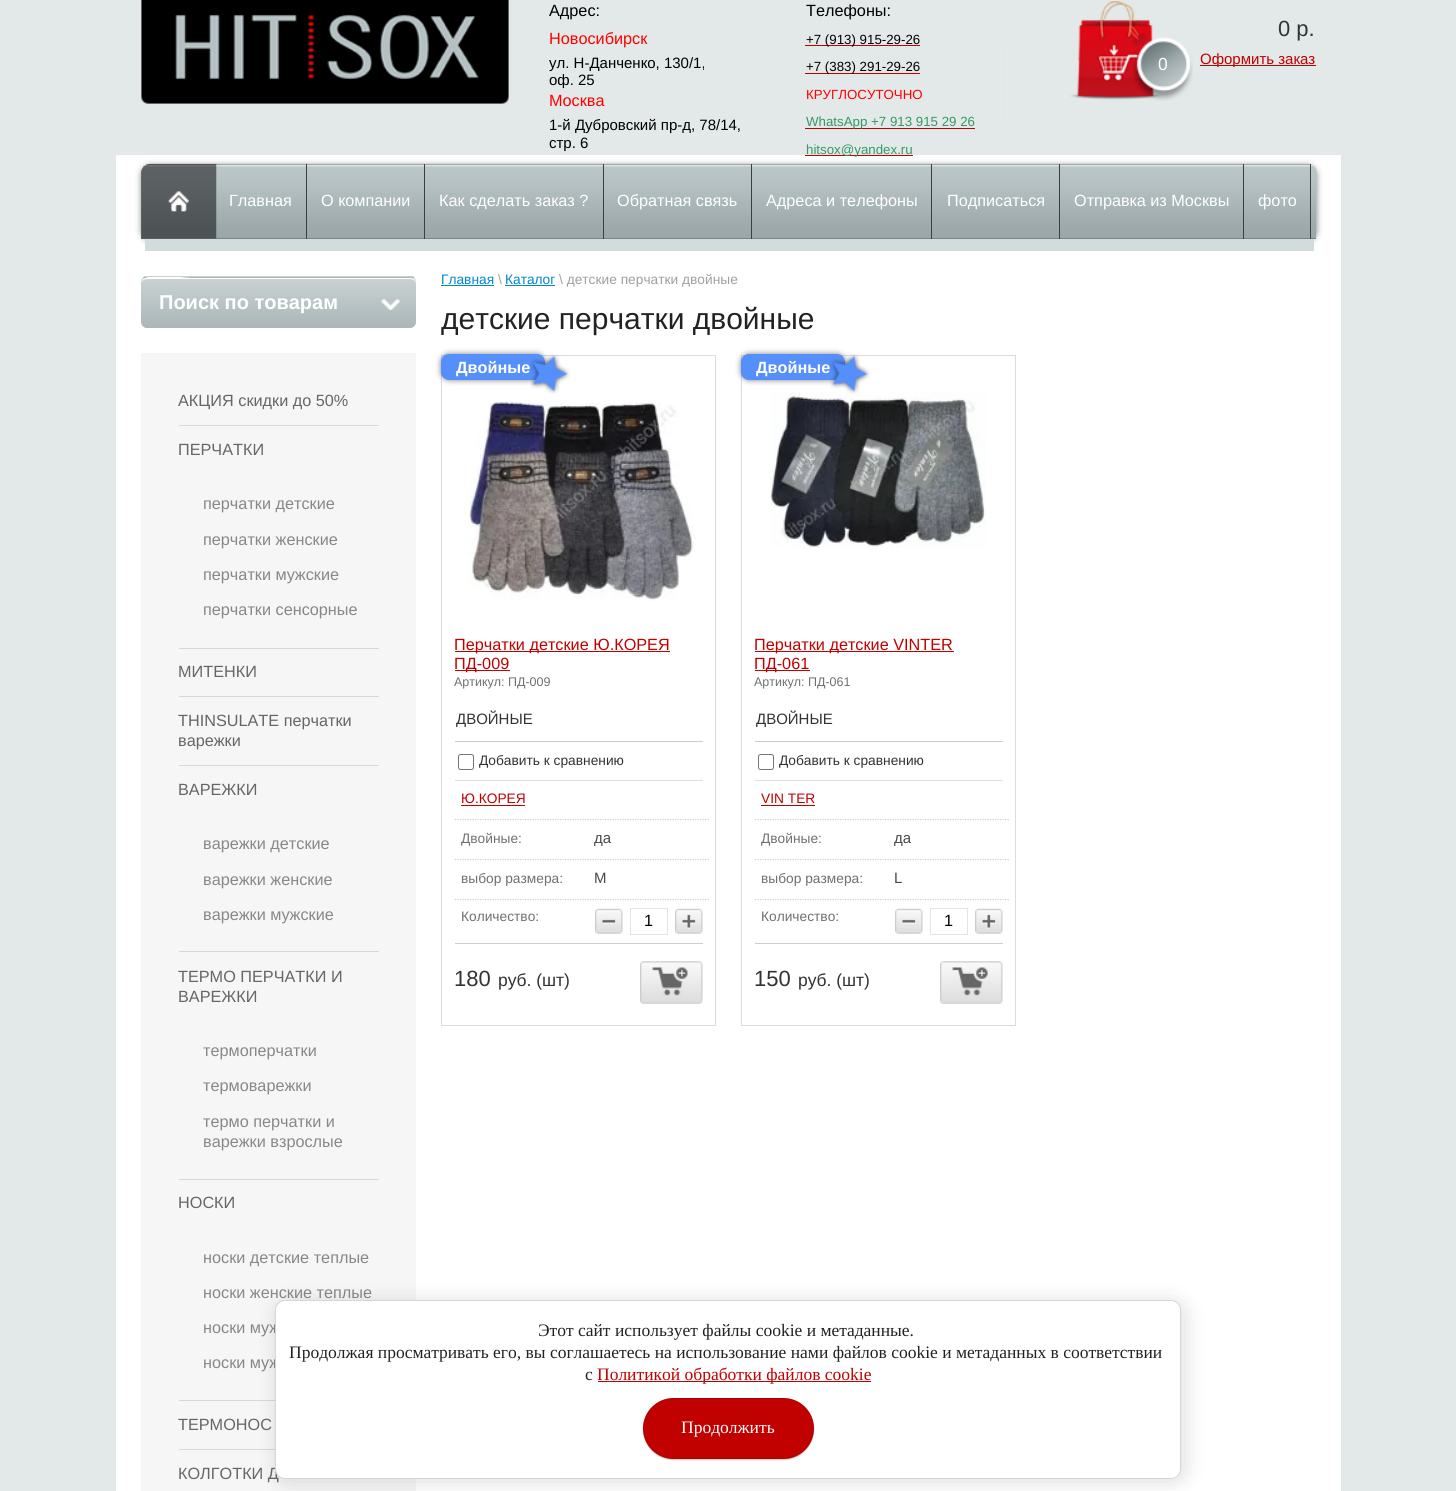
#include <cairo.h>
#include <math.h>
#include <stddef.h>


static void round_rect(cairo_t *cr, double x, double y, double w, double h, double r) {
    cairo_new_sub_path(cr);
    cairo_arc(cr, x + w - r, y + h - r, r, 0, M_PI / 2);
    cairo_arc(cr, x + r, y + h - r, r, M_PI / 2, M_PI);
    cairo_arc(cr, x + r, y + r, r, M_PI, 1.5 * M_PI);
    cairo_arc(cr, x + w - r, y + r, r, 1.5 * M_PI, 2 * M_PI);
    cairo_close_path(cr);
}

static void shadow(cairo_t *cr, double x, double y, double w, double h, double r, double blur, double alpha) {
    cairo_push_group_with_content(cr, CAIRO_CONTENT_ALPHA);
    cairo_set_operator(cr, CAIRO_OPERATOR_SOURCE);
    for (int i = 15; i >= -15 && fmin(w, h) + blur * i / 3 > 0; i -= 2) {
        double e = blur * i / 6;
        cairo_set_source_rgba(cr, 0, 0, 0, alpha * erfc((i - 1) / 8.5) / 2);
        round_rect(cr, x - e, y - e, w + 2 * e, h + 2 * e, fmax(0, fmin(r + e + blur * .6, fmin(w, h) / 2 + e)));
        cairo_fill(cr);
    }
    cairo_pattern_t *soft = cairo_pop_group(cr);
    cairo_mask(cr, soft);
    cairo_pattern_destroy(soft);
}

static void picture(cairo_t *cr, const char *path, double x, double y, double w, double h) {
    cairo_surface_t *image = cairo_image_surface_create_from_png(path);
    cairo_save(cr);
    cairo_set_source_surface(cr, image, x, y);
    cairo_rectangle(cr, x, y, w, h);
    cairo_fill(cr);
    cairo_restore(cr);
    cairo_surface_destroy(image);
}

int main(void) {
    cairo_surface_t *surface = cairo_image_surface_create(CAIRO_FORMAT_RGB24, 1456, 1491);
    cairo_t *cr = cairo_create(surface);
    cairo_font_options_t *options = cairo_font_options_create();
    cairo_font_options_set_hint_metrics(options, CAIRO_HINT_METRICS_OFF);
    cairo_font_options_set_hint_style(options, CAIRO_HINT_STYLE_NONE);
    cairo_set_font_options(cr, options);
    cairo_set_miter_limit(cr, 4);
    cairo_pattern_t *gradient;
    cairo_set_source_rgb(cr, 0.89, 0.914, 0.914);
    cairo_paint(cr);
    cairo_set_source_rgb(cr, 1, 1, 1);
    cairo_rectangle(cr, 116, 155, 1225, 1336);
    cairo_fill(cr);
    picture(cr, "img1.png", 141, 0, 368, 104);
    picture(cr, "img2.png", 1004, 42, 1, 78);
    cairo_select_font_face(cr, "Liberation Sans", CAIRO_FONT_SLANT_NORMAL, CAIRO_FONT_WEIGHT_NORMAL);
    cairo_set_font_size(cr, 16.25);
    cairo_set_source_rgb(cr, 0, 0, 0);
    cairo_move_to(cr, 549, 16);
    cairo_show_text(cr, "Адрес:");
    cairo_set_source_rgb(cr, 1, 0, 0);
    cairo_move_to(cr, 549, 44);
    cairo_show_text(cr, "Новосибирск");
    cairo_set_font_size(cr, 15);
    cairo_set_source_rgb(cr, 0, 0, 0);
    cairo_move_to(cr, 549, 68);
    cairo_show_text(cr, "ул. Н-Данченко, 130/1,");
    cairo_move_to(cr, 549, 85);
    cairo_show_text(cr, "оф. 25");
    cairo_set_font_size(cr, 16.25);
    cairo_set_source_rgb(cr, 1, 0, 0);
    cairo_move_to(cr, 549, 106);
    cairo_show_text(cr, "Москва");
    cairo_set_font_size(cr, 15);
    cairo_set_source_rgb(cr, 0, 0, 0);
    cairo_move_to(cr, 549, 130);
    cairo_show_text(cr, "1-й Дубровский пр-д, 78/14,");
    cairo_move_to(cr, 549, 148);
    cairo_show_text(cr, "стр. 6");
    cairo_set_font_size(cr, 16.25);
    cairo_move_to(cr, 806, 16);
    cairo_show_text(cr, "Телефоны:");
    cairo_set_source_rgb(cr, 0.757, 0, 0);
    cairo_rectangle(cr, 805, 45, 115, 1);
    cairo_fill(cr);
    cairo_set_font_size(cr, 13.3);
    cairo_set_source_rgb(cr, 0, 0, 0);
    cairo_move_to(cr, 806, 44);
    cairo_show_text(cr, "+7 (913) 915-29-26");
    cairo_set_source_rgb(cr, 0.757, 0, 0);
    cairo_rectangle(cr, 805, 73, 115, 1);
    cairo_fill(cr);
    cairo_set_source_rgb(cr, 0, 0, 0);
    cairo_move_to(cr, 806, 71);
    cairo_show_text(cr, "+7 (383) 291-29-26");
    cairo_set_source_rgb(cr, 1, 0, 0);
    cairo_move_to(cr, 806, 99);
    cairo_show_text(cr, "КРУГЛОСУТОЧНО");
    cairo_set_source_rgb(cr, 0.757, 0, 0);
    cairo_rectangle(cr, 805, 128, 170, 1);
    cairo_fill(cr);
    cairo_set_source_rgb(cr, 0.2, 0.6, 0.4);
    cairo_move_to(cr, 806, 126);
    cairo_show_text(cr, "WhatsApp +7 913 915 29 26");
    cairo_set_source_rgb(cr, 0.757, 0, 0);
    cairo_rectangle(cr, 805, 155, 108, 1);
    cairo_fill(cr);
    cairo_set_source_rgb(cr, 0.2, 0.6, 0.4);
    cairo_move_to(cr, 806, 154);
    cairo_show_text(cr, "hitsox@yandex.ru");
    picture(cr, "img3.png", 1070, 1, 123, 100);
    cairo_set_font_size(cr, 17.5);
    cairo_set_source_rgb(cr, 1, 1, 1);
    cairo_move_to(cr, 1158, 70);
    cairo_show_text(cr, "0");
    cairo_set_font_size(cr, 22);
    cairo_set_source_rgb(cr, 0.2, 0.2, 0.2);
    cairo_move_to(cr, 1278, 36);
    cairo_show_text(cr, "0 р.");
    cairo_set_source_rgb(cr, 0.757, 0, 0);
    cairo_rectangle(cr, 1200, 65, 116, 1);
    cairo_fill(cr);
    cairo_set_font_size(cr, 15);
    cairo_move_to(cr, 1200, 64);
    cairo_show_text(cr, "Оформить заказ");
    cairo_set_source_rgb(cr, 0, 0, 0);
    shadow(cr, 144, 168, 1170, 70, 6, 4, 1);
    cairo_set_source_rgb(cr, 0.318, 0.341, 0.373);
    cairo_new_path(cr);
    cairo_move_to(cr, 150, 164);
    cairo_line_to(cr, 1307, 164);
    cairo_curve_to(cr, 1312, 164, 1316, 168, 1316, 173);
    cairo_line_to(cr, 1316, 239);
    cairo_line_to(cr, 141, 239);
    cairo_line_to(cr, 141, 173);
    cairo_curve_to(cr, 141, 168, 145, 164, 150, 164);
    cairo_close_path(cr);
    cairo_fill(cr);
    picture(cr, "img4.png", 141, 163, 1176, 76);
    picture(cr, "img5.png", 141, 163, 76, 76);
    cairo_set_source_rgb(cr, 0.224, 0.243, 0.267);
    cairo_rectangle(cr, 306, 164, 1, 75);
    cairo_fill(cr);
    cairo_set_font_size(cr, 16.25);
    cairo_set_source_rgb(cr, 1, 1, 1);
    cairo_move_to(cr, 229, 206);
    cairo_show_text(cr, "Главная");
    cairo_set_source_rgb(cr, 0.224, 0.243, 0.267);
    cairo_rectangle(cr, 424, 164, 1, 75);
    cairo_fill(cr);
    cairo_set_source_rgb(cr, 1, 1, 1);
    cairo_move_to(cr, 321, 206);
    cairo_show_text(cr, "О компании");
    cairo_set_source_rgb(cr, 0.224, 0.243, 0.267);
    cairo_rectangle(cr, 603, 164, 1, 75);
    cairo_fill(cr);
    cairo_set_source_rgb(cr, 1, 1, 1);
    cairo_move_to(cr, 439, 206);
    cairo_show_text(cr, "Как сделать заказ ?");
    cairo_set_source_rgb(cr, 0.224, 0.243, 0.267);
    cairo_rectangle(cr, 751, 164, 1, 75);
    cairo_fill(cr);
    cairo_set_source_rgb(cr, 1, 1, 1);
    cairo_move_to(cr, 617, 206);
    cairo_show_text(cr, "Обратная связь");
    cairo_set_source_rgb(cr, 0.224, 0.243, 0.267);
    cairo_rectangle(cr, 931, 164, 1, 75);
    cairo_fill(cr);
    cairo_set_source_rgb(cr, 1, 1, 1);
    cairo_move_to(cr, 766, 206);
    cairo_show_text(cr, "Адреса и телефоны");
    cairo_set_source_rgb(cr, 0.224, 0.243, 0.267);
    cairo_rectangle(cr, 1059, 164, 1, 75);
    cairo_fill(cr);
    cairo_set_source_rgb(cr, 1, 1, 1);
    cairo_move_to(cr, 947, 206);
    cairo_show_text(cr, "Подписаться");
    cairo_set_source_rgb(cr, 0.224, 0.243, 0.267);
    cairo_rectangle(cr, 1243, 164, 1, 75);
    cairo_fill(cr);
    cairo_set_source_rgb(cr, 1, 1, 1);
    cairo_move_to(cr, 1074, 206);
    cairo_show_text(cr, "Отправка из Москвы");
    cairo_set_source_rgb(cr, 0.224, 0.243, 0.267);
    cairo_rectangle(cr, 1310, 164, 1, 75);
    cairo_fill(cr);
    cairo_set_source_rgb(cr, 1, 1, 1);
    cairo_move_to(cr, 1258, 206);
    cairo_show_text(cr, "фото");
    cairo_set_source_rgb(cr, 0.827, 0.863, 0.867);
    cairo_rectangle(cr, 145, 239, 1169, 12);
    cairo_fill(cr);
    cairo_save(cr);
    round_rect(cr, 141, 276, 275, 52, 6);
    cairo_clip(cr);
    gradient = cairo_pattern_create_linear(279, 228, 279, 278);
    cairo_pattern_add_color_stop_rgba(gradient, 0, 0.792, 0.824, 0.827, 1);
    cairo_pattern_add_color_stop_rgba(gradient, 1, 0.667, 0.714, 0.722, 1);
    cairo_set_source(cr, gradient);
    cairo_pattern_destroy(gradient);
    cairo_rectangle(cr, 141, 276, 275, 2);
    cairo_fill(cr);
    gradient = cairo_pattern_create_linear(279, 278, 279, 328);
    cairo_pattern_add_color_stop_rgba(gradient, 0, 0.792, 0.824, 0.827, 1);
    cairo_pattern_add_color_stop_rgba(gradient, 1, 0.667, 0.714, 0.722, 1);
    cairo_set_source(cr, gradient);
    cairo_pattern_destroy(gradient);
    cairo_new_path(cr);
    cairo_move_to(cr, 141, 278);
    cairo_line_to(cr, 416, 278);
    cairo_line_to(cr, 416, 322);
    cairo_curve_to(cr, 416, 325.5, 413.5, 328, 410, 328);
    cairo_line_to(cr, 147, 328);
    cairo_curve_to(cr, 143.5, 328, 141, 325.5, 141, 322);
    cairo_close_path(cr);
    cairo_fill(cr);
    cairo_restore(cr);
    cairo_set_source_rgb(cr, 1, 1, 1);
    cairo_new_path(cr);
    cairo_move_to(cr, 148, 279);
    cairo_line_to(cr, 410, 279);
    cairo_curve_to(cr, 413, 279, 416, 281, 416, 284);
    cairo_line_to(cr, 416, 323);
    cairo_line_to(cr, 416, 289);
    cairo_curve_to(cr, 416, 284, 417, 278, 410, 278);
    cairo_line_to(cr, 191, 278);
    cairo_curve_to(cr, 185, 278, 141, 271, 141, 283);
    cairo_curve_to(cr, 142, 280, 145, 279, 148, 279);
    cairo_close_path(cr);
    cairo_fill(cr);
    cairo_set_source_rgb(cr, 0.792, 0.824, 0.827);
    cairo_rectangle(cr, 145, 276, 269, 1);
    cairo_fill(cr);
    cairo_select_font_face(cr, "Liberation Sans", CAIRO_FONT_SLANT_NORMAL, CAIRO_FONT_WEIGHT_BOLD);
    cairo_set_font_size(cr, 20);
    cairo_set_source_rgb(cr, 1, 1, 1);
    cairo_move_to(cr, 159, 309);
    cairo_show_text(cr, "Поиск по товарам");
    picture(cr, "img6.png", 381, 298, 19, 12);
    cairo_set_source_rgb(cr, 0.961, 0.961, 0.961);
    cairo_rectangle(cr, 141, 353, 275, 1138);
    cairo_fill(cr);
    cairo_set_source_rgb(cr, 0.847, 0.847, 0.847);
    cairo_rectangle(cr, 179, 425, 200, 1);
    cairo_fill(cr);
    cairo_select_font_face(cr, "Liberation Sans", CAIRO_FONT_SLANT_NORMAL, CAIRO_FONT_WEIGHT_NORMAL);
    cairo_set_font_size(cr, 16.25);
    cairo_set_source_rgb(cr, 0.4, 0.4, 0.4);
    cairo_move_to(cr, 178, 406);
    cairo_show_text(cr, "АКЦИЯ скидки до 50%");
    cairo_set_source_rgb(cr, 0.847, 0.847, 0.847);
    cairo_rectangle(cr, 179, 648, 200, 1);
    cairo_fill(cr);
    cairo_set_source_rgb(cr, 0.4, 0.4, 0.4);
    cairo_move_to(cr, 178, 455);
    cairo_show_text(cr, "ПЕРЧАТКИ");
    cairo_set_source_rgb(cr, 0.533, 0.533, 0.533);
    cairo_move_to(cr, 203, 509);
    cairo_show_text(cr, "перчатки детские");
    cairo_move_to(cr, 203, 545);
    cairo_show_text(cr, "перчатки женские");
    cairo_move_to(cr, 203, 580);
    cairo_show_text(cr, "перчатки мужские");
    cairo_move_to(cr, 203, 615);
    cairo_show_text(cr, "перчатки сенсорные");
    cairo_set_source_rgb(cr, 0.847, 0.847, 0.847);
    cairo_rectangle(cr, 179, 696, 200, 1);
    cairo_fill(cr);
    cairo_set_source_rgb(cr, 0.4, 0.4, 0.4);
    cairo_move_to(cr, 178, 677);
    cairo_show_text(cr, "МИТЕНКИ");
    cairo_set_source_rgb(cr, 0.847, 0.847, 0.847);
    cairo_rectangle(cr, 179, 765, 200, 1);
    cairo_fill(cr);
    cairo_set_source_rgb(cr, 0.4, 0.4, 0.4);
    cairo_move_to(cr, 178, 726);
    cairo_show_text(cr, "THINSULATE перчатки");
    cairo_move_to(cr, 178, 746);
    cairo_show_text(cr, "варежки");
    cairo_set_source_rgb(cr, 0.847, 0.847, 0.847);
    cairo_rectangle(cr, 179, 951, 200, 1);
    cairo_fill(cr);
    cairo_set_source_rgb(cr, 0.4, 0.4, 0.4);
    cairo_move_to(cr, 178, 795);
    cairo_show_text(cr, "ВАРЕЖКИ");
    cairo_set_source_rgb(cr, 0.533, 0.533, 0.533);
    cairo_move_to(cr, 203, 849);
    cairo_show_text(cr, "варежки детские");
    cairo_move_to(cr, 203, 885);
    cairo_show_text(cr, "варежки женские");
    cairo_move_to(cr, 203, 920);
    cairo_show_text(cr, "варежки мужские");
    cairo_set_source_rgb(cr, 0.847, 0.847, 0.847);
    cairo_rectangle(cr, 179, 1179, 200, 1);
    cairo_fill(cr);
    cairo_set_source_rgb(cr, 0.4, 0.4, 0.4);
    cairo_move_to(cr, 178, 982);
    cairo_show_text(cr, "ТЕРМО ПЕРЧАТКИ И");
    cairo_move_to(cr, 178, 1002);
    cairo_show_text(cr, "ВАРЕЖКИ");
    cairo_set_source_rgb(cr, 0.533, 0.533, 0.533);
    cairo_move_to(cr, 203, 1056);
    cairo_show_text(cr, "термоперчатки");
    cairo_move_to(cr, 203, 1091);
    cairo_show_text(cr, "термоварежки");
    cairo_move_to(cr, 203, 1127);
    cairo_show_text(cr, "термо перчатки и");
    cairo_move_to(cr, 203, 1147);
    cairo_show_text(cr, "варежки взрослые");
    cairo_set_source_rgb(cr, 0.847, 0.847, 0.847);
    cairo_rectangle(cr, 179, 1400, 96, 1);
    cairo_fill(cr);
    cairo_set_source_rgb(cr, 0.4, 0.4, 0.4);
    cairo_move_to(cr, 178, 1208);
    cairo_show_text(cr, "НОСКИ");
    cairo_set_source_rgb(cr, 0.533, 0.533, 0.533);
    cairo_move_to(cr, 203, 1263);
    cairo_show_text(cr, "носки детские теплые");
    cairo_move_to(cr, 203, 1298);
    cairo_show_text(cr, "носки женские теплые");
    cairo_move_to(cr, 203, 1333);
    cairo_show_text(cr, "носки муж");
    cairo_move_to(cr, 203, 1368);
    cairo_show_text(cr, "носки муж");
    cairo_set_source_rgb(cr, 0.847, 0.847, 0.847);
    cairo_rectangle(cr, 179, 1449, 96, 1);
    cairo_fill(cr);
    cairo_set_source_rgb(cr, 0.4, 0.4, 0.4);
    cairo_move_to(cr, 178, 1430);
    cairo_show_text(cr, "ТЕРМОНОС");
    cairo_move_to(cr, 178, 1479);
    cairo_show_text(cr, "КОЛГОТКИ Д");
    cairo_set_font_size(cr, 13.75);
    cairo_set_source_rgb(cr, 0, 0.533, 0.8);
    cairo_move_to(cr, 441, 284);
    cairo_show_text(cr, "Главная");
    cairo_rectangle(cr, 441, 285, 53, 1);
    cairo_fill(cr);
    cairo_set_source_rgb(cr, 0.627, 0.627, 0.627);
    cairo_move_to(cr, 498, 284);
    cairo_show_text(cr, "\\");
    cairo_set_source_rgb(cr, 0, 0.533, 0.8);
    cairo_move_to(cr, 505, 284);
    cairo_show_text(cr, "Каталог");
    cairo_rectangle(cr, 505, 285, 50, 1);
    cairo_fill(cr);
    cairo_set_source_rgb(cr, 0.627, 0.627, 0.627);
    cairo_move_to(cr, 559, 284);
    cairo_show_text(cr, "\\ детские перчатки двойные");
    cairo_set_font_size(cr, 30);
    cairo_set_source_rgb(cr, 0.133, 0.133, 0.133);
    cairo_move_to(cr, 441, 329);
    cairo_show_text(cr, "детские перчатки двойные");
    cairo_set_source_rgb(cr, 0.859, 0.859, 0.859);
    cairo_rectangle(cr, 441, 355, 275, 1);
    cairo_fill(cr);
    cairo_rectangle(cr, 715, 943, 1, 83);
    cairo_fill(cr);
    cairo_rectangle(cr, 715, 355, 1, 594);
    cairo_fill(cr);
    cairo_rectangle(cr, 441, 1025, 275, 1);
    cairo_fill(cr);
    cairo_rectangle(cr, 441, 943, 1, 83);
    cairo_fill(cr);
    cairo_rectangle(cr, 441, 355, 1, 594);
    cairo_fill(cr);
    cairo_set_source_rgb(cr, 0, 0, 0);
    shadow(cr, 441, 354, 104, 26, 8, 3, 0.5);
    cairo_set_source_rgb(cr, 0.333, 0.561, 0.984);
    round_rect(cr, 441, 354, 104, 26, 8);
    cairo_fill(cr);
    cairo_select_font_face(cr, "Liberation Sans", CAIRO_FONT_SLANT_NORMAL, CAIRO_FONT_WEIGHT_BOLD);
    cairo_set_font_size(cr, 16.25);
    cairo_set_source_rgb(cr, 1, 1, 1);
    cairo_move_to(cr, 456, 373);
    cairo_show_text(cr, "Двойные");
    picture(cr, "img7.png", 530, 354, 40, 40);
    picture(cr, "img8.png", 463, 399, 232, 202);
    cairo_set_source_rgb(cr, 0.757, 0, 0);
    cairo_rectangle(cr, 455, 651, 215, 1);
    cairo_fill(cr);
    cairo_select_font_face(cr, "Liberation Sans", CAIRO_FONT_SLANT_NORMAL, CAIRO_FONT_WEIGHT_NORMAL);
    cairo_move_to(cr, 454, 650);
    cairo_show_text(cr, "Перчатки детские Ю.КОРЕЯ");
    cairo_rectangle(cr, 455, 670, 55, 1);
    cairo_fill(cr);
    cairo_move_to(cr, 454, 669);
    cairo_show_text(cr, "ПД-009");
    cairo_set_font_size(cr, 12.5);
    cairo_set_source_rgb(cr, 0.439, 0.439, 0.439);
    cairo_move_to(cr, 454, 686);
    cairo_show_text(cr, "Артикул: ПД-009");
    cairo_set_source_rgb(cr, 0.804, 0.804, 0.804);
    cairo_rectangle(cr, 455, 741, 248, 1);
    cairo_fill(cr);
    cairo_set_font_size(cr, 15);
    cairo_set_source_rgb(cr, 0.2, 0.2, 0.2);
    cairo_move_to(cr, 456, 724);
    cairo_show_text(cr, "ДВОЙНЫЕ");
    cairo_set_source_rgb(cr, 0.871, 0.871, 0.871);
    cairo_rectangle(cr, 455, 780, 248, 1);
    cairo_fill(cr);
    round_rect(cr, 458.5, 754.5, 15, 15, 2);
    cairo_set_source_rgb(cr, 0.463, 0.463, 0.463);
    cairo_set_line_width(cr, 1);
    cairo_stroke(cr);
    cairo_set_font_size(cr, 13.75);
    cairo_set_source_rgb(cr, 0.2, 0.2, 0.2);
    cairo_move_to(cr, 479, 765);
    cairo_show_text(cr, "Добавить к сравнению");
    cairo_new_path(cr);
    cairo_move_to(cr, 455, 819.5);
    cairo_line_to(cr, 710, 819.5);
    cairo_set_source_rgb(cr, 0.804, 0.804, 0.804);
    cairo_set_line_width(cr, 1.2);
    cairo_set_dash(cr, (double[]){1.25, 1.25}, 2, 0);
    cairo_stroke(cr);
    cairo_set_source_rgb(cr, 0.757, 0, 0);
    cairo_move_to(cr, 461, 803);
    cairo_show_text(cr, "Ю.КОРЕЯ");
    cairo_rectangle(cr, 461, 805, 64, 1);
    cairo_fill(cr);
    cairo_new_path(cr);
    cairo_move_to(cr, 455, 859.5);
    cairo_line_to(cr, 710, 859.5);
    cairo_set_source_rgb(cr, 0.804, 0.804, 0.804);
    cairo_stroke(cr);
    cairo_set_source_rgb(cr, 0.439, 0.439, 0.439);
    cairo_move_to(cr, 461, 843);
    cairo_show_text(cr, "Двойные:");
    cairo_set_font_size(cr, 15);
    cairo_set_source_rgb(cr, 0.282, 0.282, 0.282);
    cairo_move_to(cr, 594, 843);
    cairo_show_text(cr, "да");
    cairo_new_path(cr);
    cairo_move_to(cr, 455, 899.5);
    cairo_line_to(cr, 710, 899.5);
    cairo_set_source_rgb(cr, 0.804, 0.804, 0.804);
    cairo_stroke(cr);
    cairo_set_font_size(cr, 13.75);
    cairo_set_source_rgb(cr, 0.439, 0.439, 0.439);
    cairo_move_to(cr, 461, 883);
    cairo_show_text(cr, "выбор размера:");
    cairo_set_font_size(cr, 15);
    cairo_set_source_rgb(cr, 0.282, 0.282, 0.282);
    cairo_move_to(cr, 594, 883);
    cairo_show_text(cr, "M");
    cairo_set_font_size(cr, 13.75);
    cairo_set_source_rgb(cr, 0.439, 0.439, 0.439);
    cairo_move_to(cr, 461, 921);
    cairo_show_text(cr, "Количество:");
    picture(cr, "img9.png", 595, 908, 28, 26);
    cairo_rectangle(cr, 630.5, 908.5, 37, 26);
    cairo_set_source_rgb(cr, 0.886, 0.89, 0.918);
    cairo_set_line_width(cr, 1);
    cairo_set_dash(cr, NULL, 0, 0);
    cairo_stroke(cr);
    cairo_set_font_size(cr, 16.25);
    cairo_set_source_rgb(cr, 0, 0, 0);
    cairo_move_to(cr, 644, 926);
    cairo_show_text(cr, "1");
    picture(cr, "img10.png", 675, 908, 28, 26);
    cairo_set_source_rgb(cr, 0.804, 0.804, 0.804);
    cairo_rectangle(cr, 455, 943, 248, 1);
    cairo_fill(cr);
    cairo_set_font_size(cr, 22);
    cairo_set_source_rgb(cr, 0.2, 0.2, 0.2);
    cairo_move_to(cr, 454, 986);
    cairo_show_text(cr, "180");
    cairo_set_font_size(cr, 17.5);
    cairo_move_to(cr, 498, 986);
    cairo_show_text(cr, "руб. (шт)");
    picture(cr, "img11.png", 640, 961, 63, 43);
    picture(cr, "img12.png", 652, 967, 36, 29);
    cairo_set_source_rgb(cr, 0.859, 0.859, 0.859);
    cairo_rectangle(cr, 741, 355, 275, 1);
    cairo_fill(cr);
    cairo_rectangle(cr, 1015, 943, 1, 83);
    cairo_fill(cr);
    cairo_rectangle(cr, 1015, 355, 1, 594);
    cairo_fill(cr);
    cairo_rectangle(cr, 741, 1025, 275, 1);
    cairo_fill(cr);
    cairo_rectangle(cr, 741, 943, 1, 83);
    cairo_fill(cr);
    cairo_rectangle(cr, 741, 355, 1, 594);
    cairo_fill(cr);
    cairo_set_source_rgb(cr, 0, 0, 0);
    shadow(cr, 741, 354, 104, 26, 8, 3, 0.5);
    cairo_set_source_rgb(cr, 0.333, 0.561, 0.984);
    round_rect(cr, 741, 354, 104, 26, 8);
    cairo_fill(cr);
    cairo_select_font_face(cr, "Liberation Sans", CAIRO_FONT_SLANT_NORMAL, CAIRO_FONT_WEIGHT_BOLD);
    cairo_set_font_size(cr, 16.25);
    cairo_set_source_rgb(cr, 1, 1, 1);
    cairo_move_to(cr, 756, 373);
    cairo_show_text(cr, "Двойные");
    picture(cr, "img14.png", 770, 392, 216, 156);
    picture(cr, "img13.png", 830, 354, 40, 40);
    cairo_set_source_rgb(cr, 0.757, 0, 0);
    cairo_rectangle(cr, 755, 651, 199, 1);
    cairo_fill(cr);
    cairo_select_font_face(cr, "Liberation Sans", CAIRO_FONT_SLANT_NORMAL, CAIRO_FONT_WEIGHT_NORMAL);
    cairo_move_to(cr, 754, 650);
    cairo_show_text(cr, "Перчатки детские VINTER");
    cairo_rectangle(cr, 755, 670, 55, 1);
    cairo_fill(cr);
    cairo_move_to(cr, 754, 669);
    cairo_show_text(cr, "ПД-061");
    cairo_set_font_size(cr, 12.5);
    cairo_set_source_rgb(cr, 0.439, 0.439, 0.439);
    cairo_move_to(cr, 754, 686);
    cairo_show_text(cr, "Артикул: ПД-061");
    cairo_set_source_rgb(cr, 0.804, 0.804, 0.804);
    cairo_rectangle(cr, 755, 741, 248, 1);
    cairo_fill(cr);
    cairo_set_font_size(cr, 15);
    cairo_set_source_rgb(cr, 0.2, 0.2, 0.2);
    cairo_move_to(cr, 756, 724);
    cairo_show_text(cr, "ДВОЙНЫЕ");
    cairo_set_source_rgb(cr, 0.871, 0.871, 0.871);
    cairo_rectangle(cr, 755, 780, 248, 1);
    cairo_fill(cr);
    round_rect(cr, 758.5, 754.5, 15, 15, 2);
    cairo_set_source_rgb(cr, 0.463, 0.463, 0.463);
    cairo_stroke(cr);
    cairo_set_font_size(cr, 13.75);
    cairo_set_source_rgb(cr, 0.2, 0.2, 0.2);
    cairo_move_to(cr, 779, 765);
    cairo_show_text(cr, "Добавить к сравнению");
    cairo_new_path(cr);
    cairo_move_to(cr, 755, 819.5);
    cairo_line_to(cr, 1010, 819.5);
    cairo_set_source_rgb(cr, 0.804, 0.804, 0.804);
    cairo_set_line_width(cr, 1.2);
    cairo_set_dash(cr, (double[]){1.25, 1.25}, 2, 0);
    cairo_stroke(cr);
    cairo_set_source_rgb(cr, 0.757, 0, 0);
    cairo_move_to(cr, 761, 803);
    cairo_show_text(cr, "VIN TER");
    cairo_rectangle(cr, 761, 805, 54, 1);
    cairo_fill(cr);
    cairo_new_path(cr);
    cairo_move_to(cr, 755, 859.5);
    cairo_line_to(cr, 1010, 859.5);
    cairo_set_source_rgb(cr, 0.804, 0.804, 0.804);
    cairo_stroke(cr);
    cairo_set_source_rgb(cr, 0.439, 0.439, 0.439);
    cairo_move_to(cr, 761, 843);
    cairo_show_text(cr, "Двойные:");
    cairo_set_font_size(cr, 15);
    cairo_set_source_rgb(cr, 0.282, 0.282, 0.282);
    cairo_move_to(cr, 894, 843);
    cairo_show_text(cr, "да");
    cairo_new_path(cr);
    cairo_move_to(cr, 755, 899.5);
    cairo_line_to(cr, 1010, 899.5);
    cairo_set_source_rgb(cr, 0.804, 0.804, 0.804);
    cairo_stroke(cr);
    cairo_set_font_size(cr, 13.75);
    cairo_set_source_rgb(cr, 0.439, 0.439, 0.439);
    cairo_move_to(cr, 761, 883);
    cairo_show_text(cr, "выбор размера:");
    cairo_set_font_size(cr, 15);
    cairo_set_source_rgb(cr, 0.282, 0.282, 0.282);
    cairo_move_to(cr, 894, 883);
    cairo_show_text(cr, "L");
    cairo_set_font_size(cr, 13.75);
    cairo_set_source_rgb(cr, 0.439, 0.439, 0.439);
    cairo_move_to(cr, 761, 921);
    cairo_show_text(cr, "Количество:");
    picture(cr, "img9.png", 895, 908, 28, 26);
    cairo_rectangle(cr, 930.5, 908.5, 37, 26);
    cairo_set_source_rgb(cr, 0.886, 0.89, 0.918);
    cairo_set_line_width(cr, 1);
    cairo_set_dash(cr, NULL, 0, 0);
    cairo_stroke(cr);
    cairo_set_font_size(cr, 16.25);
    cairo_set_source_rgb(cr, 0, 0, 0);
    cairo_move_to(cr, 944, 926);
    cairo_show_text(cr, "1");
    picture(cr, "img10.png", 975, 908, 28, 26);
    cairo_set_source_rgb(cr, 0.804, 0.804, 0.804);
    cairo_rectangle(cr, 755, 943, 248, 1);
    cairo_fill(cr);
    cairo_set_font_size(cr, 22);
    cairo_set_source_rgb(cr, 0.2, 0.2, 0.2);
    cairo_move_to(cr, 754, 986);
    cairo_show_text(cr, "150");
    cairo_set_font_size(cr, 17.5);
    cairo_move_to(cr, 798, 986);
    cairo_show_text(cr, "руб. (шт)");
    picture(cr, "img15.png", 940, 961, 63, 43);
    picture(cr, "img16.png", 952, 967, 36, 29);
    cairo_set_source_rgb(cr, 0, 0, 0);
    shadow(cr, 278, 1303, 906, 178, 10, 11, 0.14);
    cairo_set_source_rgb(cr, 1, 1, 1);
    round_rect(cr, 275.5, 1300.5, 905, 178, 9.5);
    cairo_fill_preserve(cr);
    cairo_set_source_rgb(cr, 0.839, 0.839, 0.839);
    cairo_stroke(cr);
    cairo_select_font_face(cr, "Liberation Serif", CAIRO_FONT_SLANT_NORMAL, CAIRO_FONT_WEIGHT_NORMAL);
    cairo_set_source_rgb(cr, 0.133, 0.133, 0.133);
    cairo_move_to(cr, 538, 1336);
    cairo_show_text(cr, "Этот сайт использует файлы cookie и метаданные.");
    cairo_move_to(cr, 289, 1358);
    cairo_show_text(cr, "Продолжая просматривать его, вы соглашаетесь на использование нами файлов cookie и метаданных в соответствии");
    cairo_move_to(cr, 585, 1380);
    cairo_show_text(cr, "с");
    cairo_set_source_rgb(cr, 0.757, 0, 0);
    cairo_rectangle(cr, 598, 1381, 273, 1);
    cairo_fill(cr);
    cairo_move_to(cr, 597, 1380);
    cairo_show_text(cr, "Политикой обработки файлов cookie");
    cairo_set_source_rgb(cr, 0, 0, 0);
    shadow(cr, 643, 1399, 171, 61, 30.5, 0.5, 0.2);
    cairo_set_source_rgb(cr, 0.757, 0, 0);
    round_rect(cr, 643, 1398, 171, 61, 30.5);
    cairo_fill(cr);
    round_rect(cr, 643.5, 1398.5, 170, 60, 30);
    cairo_set_source_rgba(cr, 0, 0, 0, 0.1);
    cairo_stroke(cr);
    cairo_set_source_rgb(cr, 1, 1, 1);
    cairo_move_to(cr, 681, 1433);
    cairo_show_text(cr, "Продолжить");
    cairo_surface_write_to_png(surface, "page.png");
    cairo_font_options_destroy(options);
    cairo_destroy(cr);
    cairo_surface_destroy(surface);
    return 0;
}
